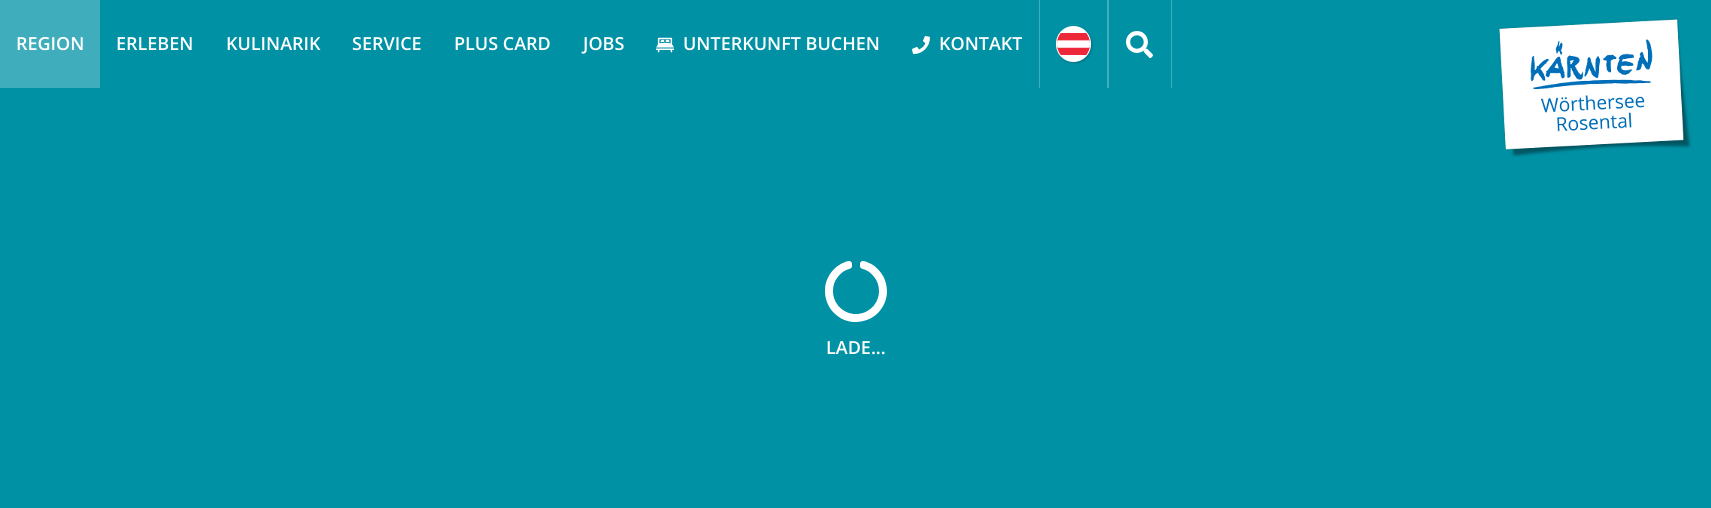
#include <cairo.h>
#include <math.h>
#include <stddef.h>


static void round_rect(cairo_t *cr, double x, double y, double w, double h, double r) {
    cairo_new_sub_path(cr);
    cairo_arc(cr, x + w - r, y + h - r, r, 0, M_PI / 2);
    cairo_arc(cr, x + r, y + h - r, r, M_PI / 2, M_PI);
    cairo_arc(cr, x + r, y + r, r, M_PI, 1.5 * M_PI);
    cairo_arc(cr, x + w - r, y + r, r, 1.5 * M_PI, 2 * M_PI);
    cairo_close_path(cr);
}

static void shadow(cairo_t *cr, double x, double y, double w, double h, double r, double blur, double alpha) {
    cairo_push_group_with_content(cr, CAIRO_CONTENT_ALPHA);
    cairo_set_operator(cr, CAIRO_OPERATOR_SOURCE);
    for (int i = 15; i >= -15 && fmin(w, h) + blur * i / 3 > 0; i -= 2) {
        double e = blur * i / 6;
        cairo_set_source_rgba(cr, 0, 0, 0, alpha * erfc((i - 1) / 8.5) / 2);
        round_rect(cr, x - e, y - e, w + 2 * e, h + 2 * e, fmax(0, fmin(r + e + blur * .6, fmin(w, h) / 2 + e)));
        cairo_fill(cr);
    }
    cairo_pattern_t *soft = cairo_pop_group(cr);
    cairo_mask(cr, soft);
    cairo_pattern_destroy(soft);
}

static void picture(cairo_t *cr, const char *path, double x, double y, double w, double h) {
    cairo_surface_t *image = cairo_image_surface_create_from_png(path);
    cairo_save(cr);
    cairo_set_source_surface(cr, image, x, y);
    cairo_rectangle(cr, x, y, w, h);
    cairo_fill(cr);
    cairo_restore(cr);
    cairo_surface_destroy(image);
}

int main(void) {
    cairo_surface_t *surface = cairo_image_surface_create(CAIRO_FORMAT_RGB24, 1711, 508);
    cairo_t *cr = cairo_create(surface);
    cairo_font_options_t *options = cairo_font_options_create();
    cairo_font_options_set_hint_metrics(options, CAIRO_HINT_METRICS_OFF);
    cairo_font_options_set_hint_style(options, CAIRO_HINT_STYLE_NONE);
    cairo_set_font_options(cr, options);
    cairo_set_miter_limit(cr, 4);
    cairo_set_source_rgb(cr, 0, 0.569, 0.647);
    cairo_paint(cr);
    cairo_set_source_rgb(cr, 0.251, 0.678, 0.737);
    cairo_rectangle(cr, 0, 0, 100, 88);
    cairo_fill(cr);
    cairo_select_font_face(cr, "Open Sans SemiBold", CAIRO_FONT_SLANT_NORMAL, CAIRO_FONT_WEIGHT_NORMAL);
    cairo_set_font_size(cr, 18);
    cairo_set_source_rgb(cr, 1, 1, 1);
    cairo_move_to(cr, 16, 50);
    cairo_show_text(cr, "REGION");
    cairo_move_to(cr, 116, 50);
    cairo_show_text(cr, "ERLEBEN");
    cairo_move_to(cr, 226, 50);
    cairo_show_text(cr, "KULINARIK");
    cairo_move_to(cr, 352, 50);
    cairo_show_text(cr, "SERVICE");
    cairo_move_to(cr, 454, 50);
    cairo_show_text(cr, "PLUS CARD");
    cairo_move_to(cr, 583, 50);
    cairo_show_text(cr, "JOBS");
    picture(cr, "img1.png", 656, 37, 18, 16);
    cairo_move_to(cr, 683, 50);
    cairo_show_text(cr, "UNTERKUNFT BUCHEN");
    picture(cr, "img2.png", 912, 36, 18, 18);
    cairo_move_to(cr, 939, 50);
    cairo_show_text(cr, "KONTAKT");
    cairo_set_source_rgb(cr, 0.251, 0.678, 0.737);
    cairo_rectangle(cr, 1107, 0, 2, 88);
    cairo_fill(cr);
    cairo_rectangle(cr, 1039, 0, 1, 88);
    cairo_fill(cr);
    cairo_set_source_rgb(cr, 0, 0, 0);
    shadow(cr, 1057, 27, 35, 36, 17.5, 1, 0.25);
    cairo_set_source_rgb(cr, 1, 1, 1);
    round_rect(cr, 1056, 26, 35, 36, 17.5);
    cairo_fill(cr);
    picture(cr, "img3.png", 1057, 33, 33, 22);
    cairo_set_source_rgb(cr, 0.251, 0.678, 0.737);
    cairo_rectangle(cr, 1171, 0, 1, 88);
    cairo_fill(cr);
    picture(cr, "img4.png", 1126, 31, 27, 27);
    picture(cr, "img5.png", 1498, 18, 194, 140);
    picture(cr, "img6.png", 825, 261, 62, 61);
    cairo_set_source_rgb(cr, 1, 1, 1);
    cairo_move_to(cr, 826, 354);
    cairo_show_text(cr, "LADE...");
    cairo_surface_write_to_png(surface, "page.png");
    cairo_font_options_destroy(options);
    cairo_destroy(cr);
    cairo_surface_destroy(surface);
    return 0;
}
